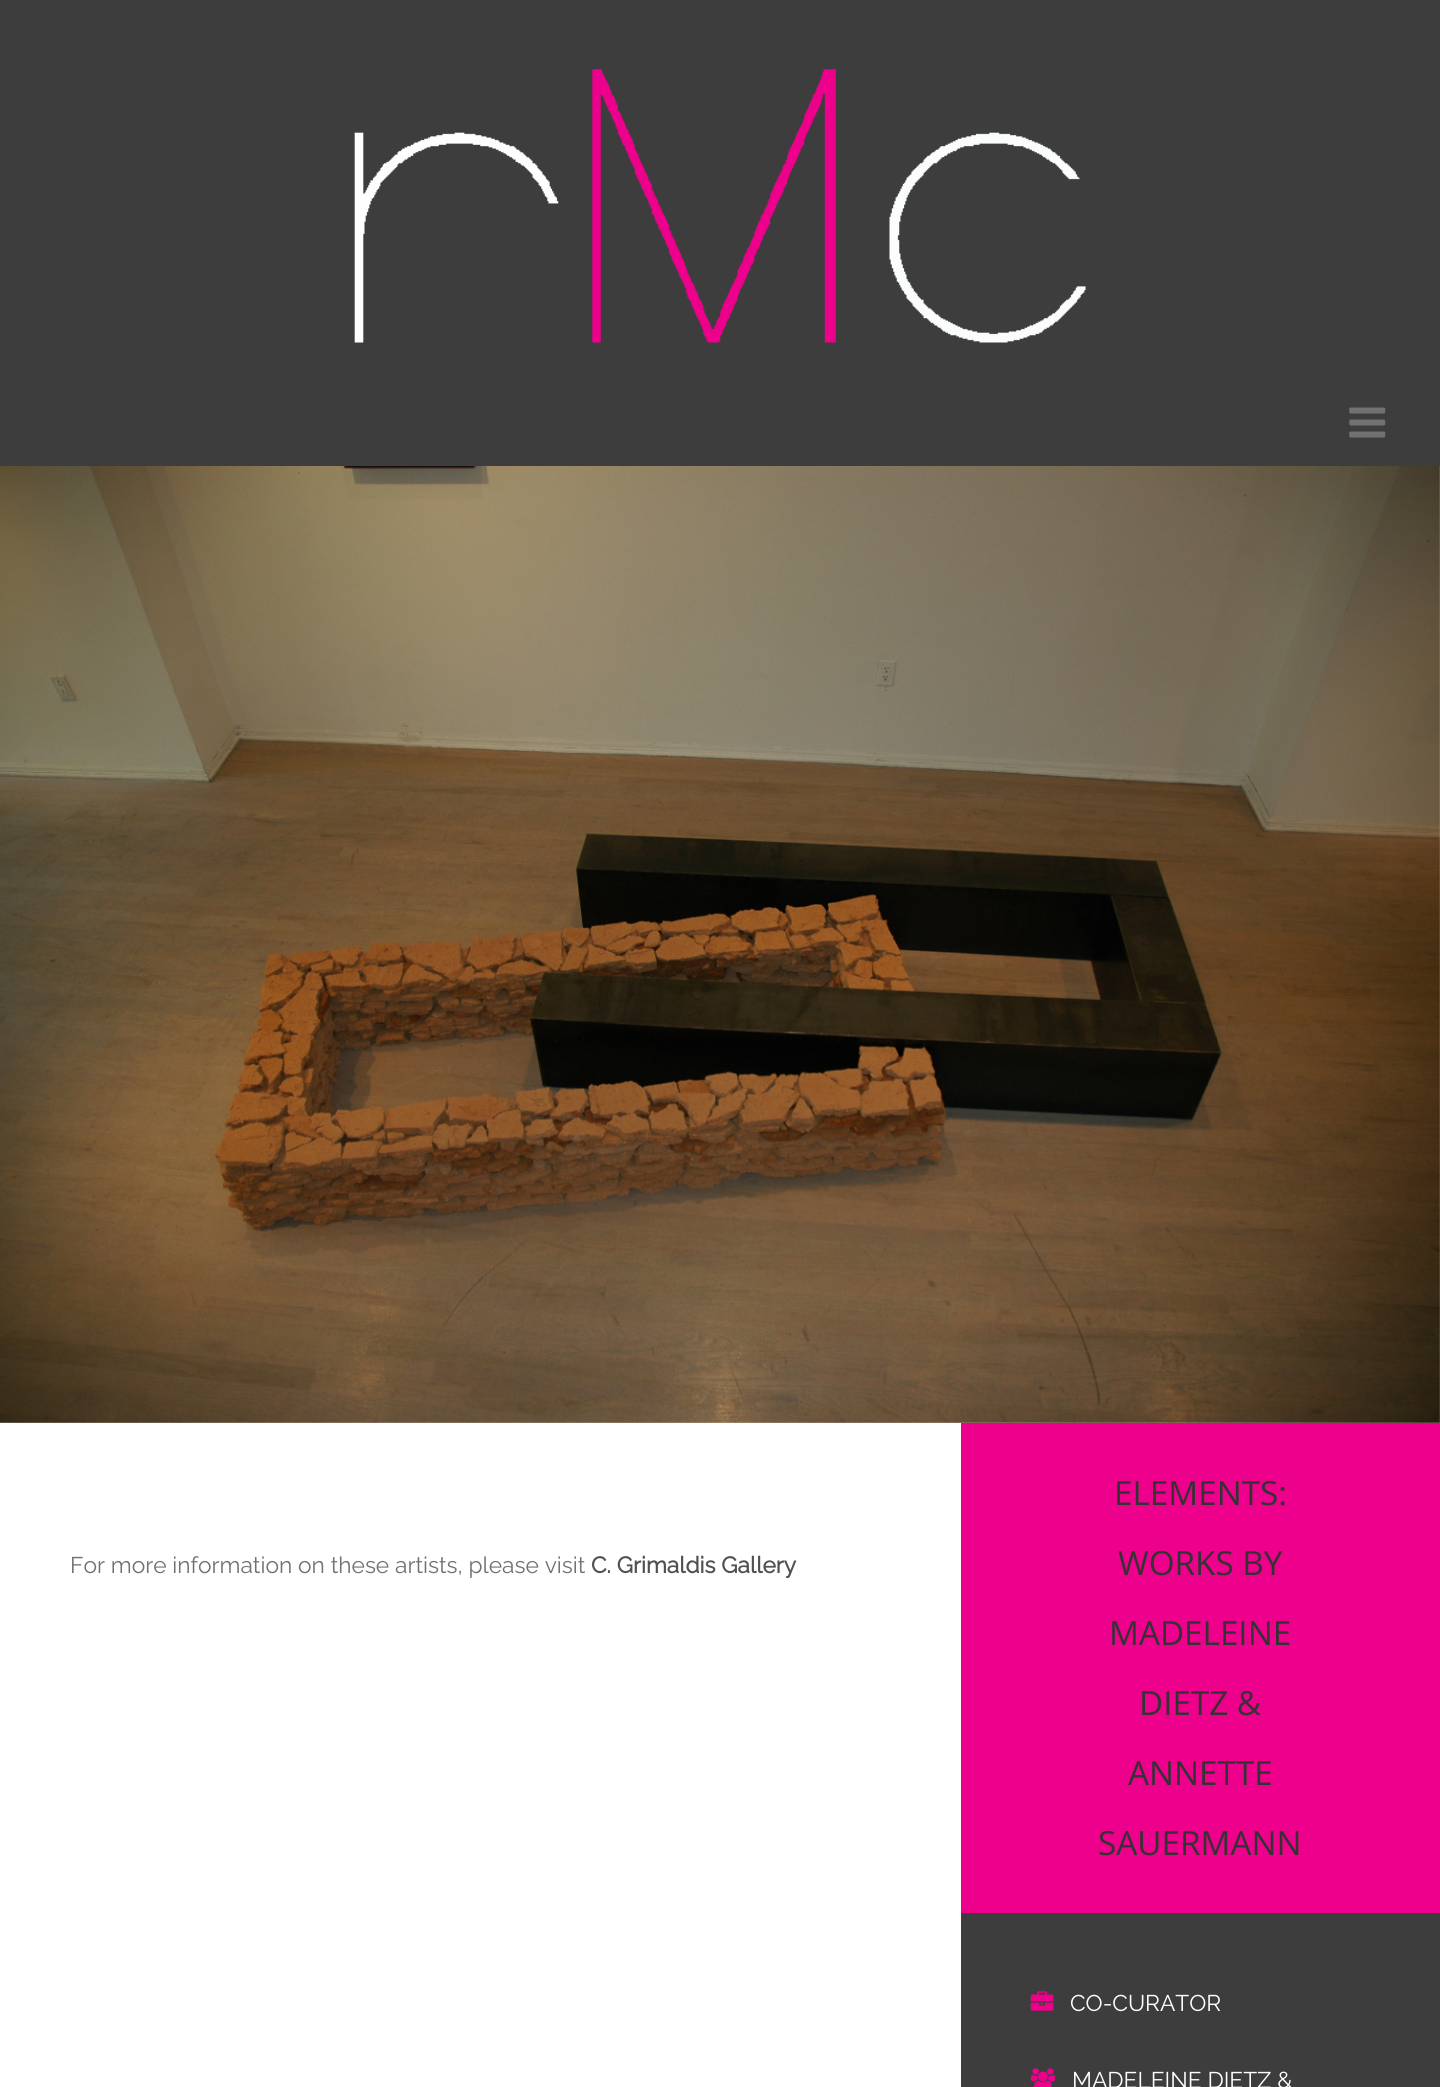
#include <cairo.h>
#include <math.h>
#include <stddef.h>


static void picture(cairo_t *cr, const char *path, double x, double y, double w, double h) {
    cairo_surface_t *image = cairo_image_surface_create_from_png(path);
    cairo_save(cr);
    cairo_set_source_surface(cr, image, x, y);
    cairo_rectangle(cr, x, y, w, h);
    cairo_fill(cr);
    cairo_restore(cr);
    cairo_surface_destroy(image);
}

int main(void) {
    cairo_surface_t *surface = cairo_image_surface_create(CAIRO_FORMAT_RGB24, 1440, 2087);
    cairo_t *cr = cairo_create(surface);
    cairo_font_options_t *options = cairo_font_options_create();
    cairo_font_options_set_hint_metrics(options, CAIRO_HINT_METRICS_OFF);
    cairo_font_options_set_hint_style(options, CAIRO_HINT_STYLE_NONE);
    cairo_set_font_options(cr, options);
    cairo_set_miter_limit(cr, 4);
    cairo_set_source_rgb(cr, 1, 1, 1);
    cairo_paint(cr);
    cairo_set_source_rgb(cr, 0.239, 0.239, 0.239);
    cairo_rectangle(cr, 0, 0, 1440, 466);
    cairo_fill(cr);
    picture(cr, "img1.png", 354, 69, 732, 274);
    picture(cr, "img2.png", 1349, 407, 37, 31);
    picture(cr, "img3.png", 0, 466, 1440, 957);
    cairo_rectangle(cr, 961, 1913, 479, 174);
    cairo_fill(cr);
    cairo_select_font_face(cr, "Raleway Thin", CAIRO_FONT_SLANT_NORMAL, CAIRO_FONT_WEIGHT_NORMAL);
    cairo_set_font_size(cr, 22.75);
    cairo_set_source_rgb(cr, 0.443, 0.443, 0.443);
    cairo_move_to(cr, 70, 1573);
    cairo_show_text(cr, "For more information on these artists, please visit");
    cairo_select_font_face(cr, "Raleway", CAIRO_FONT_SLANT_NORMAL, CAIRO_FONT_WEIGHT_BOLD);
    cairo_set_source_rgb(cr, 0.318, 0.318, 0.318);
    cairo_move_to(cr, 591, 1573);
    cairo_show_text(cr, "C. Grimaldis Gallery");
    cairo_set_source_rgb(cr, 0.925, 0, 0.549);
    cairo_rectangle(cr, 961, 1423, 479, 490);
    cairo_fill(cr);
    cairo_select_font_face(cr, "Open Sans", CAIRO_FONT_SLANT_NORMAL, CAIRO_FONT_WEIGHT_NORMAL);
    cairo_set_font_size(cr, 33.25);
    cairo_set_source_rgb(cr, 0.2, 0.2, 0.2);
    cairo_move_to(cr, 1114, 1505);
    cairo_show_text(cr, "ELEMENTS:");
    cairo_move_to(cr, 1118, 1575);
    cairo_show_text(cr, "WORKS BY");
    cairo_move_to(cr, 1109, 1645);
    cairo_show_text(cr, "MADELEINE");
    cairo_move_to(cr, 1139, 1715);
    cairo_show_text(cr, "DIETZ &");
    cairo_move_to(cr, 1128, 1785);
    cairo_show_text(cr, "ANNETTE");
    cairo_move_to(cr, 1098, 1855);
    cairo_show_text(cr, "SAUERMANN");
    picture(cr, "img4.png", 1030, 1991, 24, 20);
    cairo_select_font_face(cr, "Raleway Thin", CAIRO_FONT_SLANT_NORMAL, CAIRO_FONT_WEIGHT_NORMAL);
    cairo_set_font_size(cr, 22.75);
    cairo_set_source_rgb(cr, 1, 1, 1);
    cairo_move_to(cr, 1070, 2011);
    cairo_show_text(cr, "CO-CURATOR");
    picture(cr, "img5.png", 1030, 2068, 26, 19);
    cairo_move_to(cr, 1072, 2088);
    cairo_show_text(cr, "MADELEINE DIETZ &");
    cairo_surface_write_to_png(surface, "page.png");
    cairo_font_options_destroy(options);
    cairo_destroy(cr);
    cairo_surface_destroy(surface);
    return 0;
}
